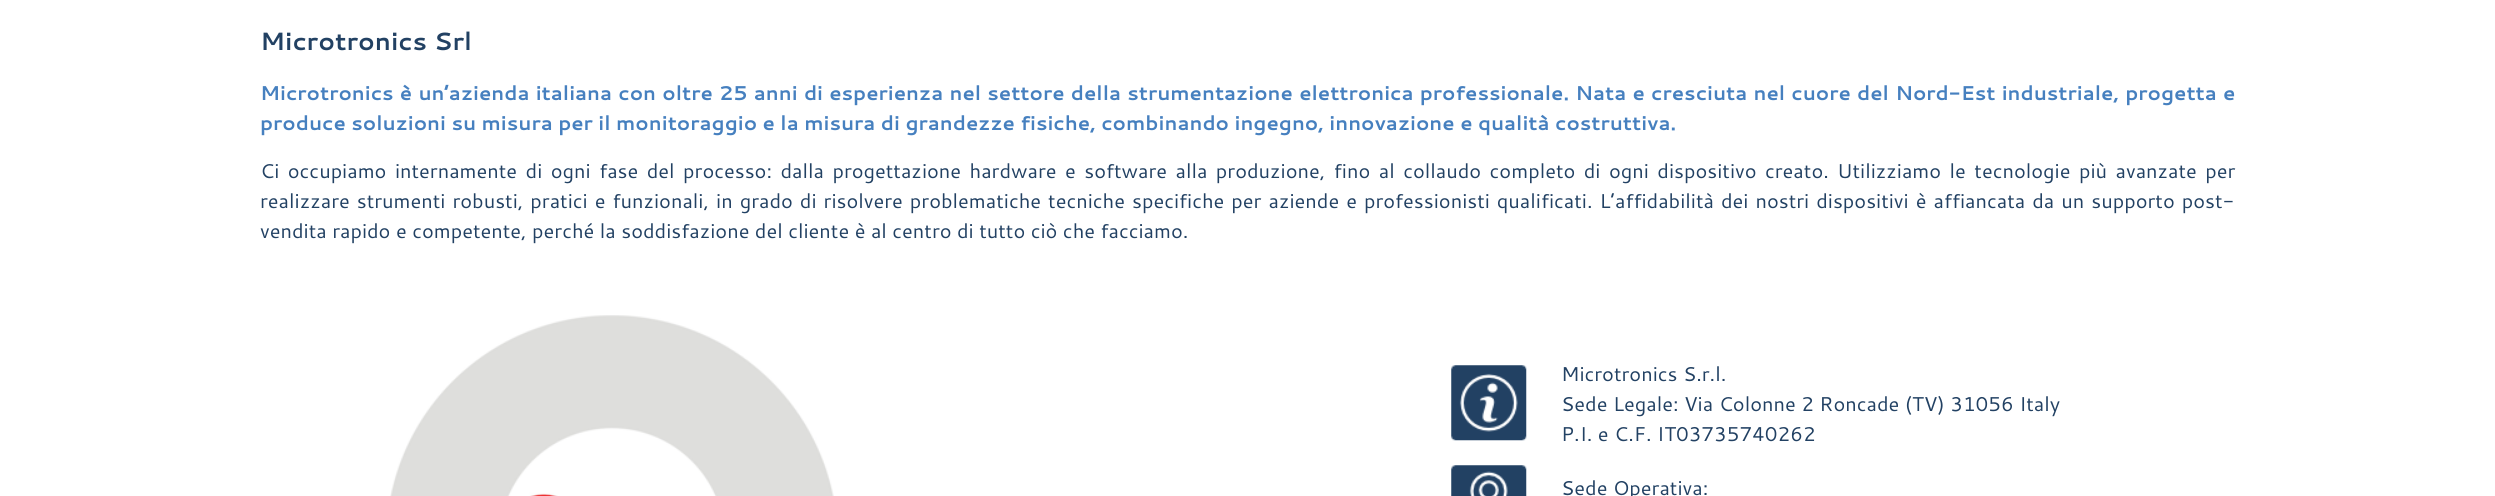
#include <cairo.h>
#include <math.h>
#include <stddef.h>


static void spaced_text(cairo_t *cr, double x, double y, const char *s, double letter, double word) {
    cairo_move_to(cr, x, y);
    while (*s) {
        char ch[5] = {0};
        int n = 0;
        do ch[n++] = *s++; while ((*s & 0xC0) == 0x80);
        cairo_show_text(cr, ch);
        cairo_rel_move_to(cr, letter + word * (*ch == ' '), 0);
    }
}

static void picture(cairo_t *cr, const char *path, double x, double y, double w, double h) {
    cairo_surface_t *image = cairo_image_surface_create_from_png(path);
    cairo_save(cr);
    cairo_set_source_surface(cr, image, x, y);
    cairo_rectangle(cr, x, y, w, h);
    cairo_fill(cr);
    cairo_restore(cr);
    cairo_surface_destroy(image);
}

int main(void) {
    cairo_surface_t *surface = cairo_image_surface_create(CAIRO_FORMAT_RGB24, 2495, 496);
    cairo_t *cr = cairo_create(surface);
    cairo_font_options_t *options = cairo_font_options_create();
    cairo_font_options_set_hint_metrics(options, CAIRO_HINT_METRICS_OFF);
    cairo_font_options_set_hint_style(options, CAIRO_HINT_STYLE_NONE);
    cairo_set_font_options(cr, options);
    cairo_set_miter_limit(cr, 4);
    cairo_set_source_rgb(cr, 1, 1, 1);
    cairo_paint(cr);
    cairo_select_font_face(cr, "Cantarell", CAIRO_FONT_SLANT_NORMAL, CAIRO_FONT_WEIGHT_BOLD);
    cairo_set_font_size(cr, 25);
    cairo_set_source_rgb(cr, 0.133, 0.255, 0.388);
    cairo_move_to(cr, 260, 50);
    cairo_show_text(cr, "Microtronics Srl");
    cairo_set_font_size(cr, 20);
    cairo_set_source_rgb(cr, 0.275, 0.502, 0.749);
    spaced_text(cr, 260, 100, "Microtronics è un’azienda italiana con oltre 25 anni di esperienza nel settore della strumentazione elettronica professionale. Nata e cresciuta nel cuore del Nord-Est industriale, progetta e", 0, 0.75);
    cairo_move_to(cr, 260, 130);
    cairo_show_text(cr, "produce soluzioni su misura per il monitoraggio e la misura di grandezze fisiche, combinando ingegno, innovazione e qualità costruttiva.");
    cairo_select_font_face(cr, "Cantarell", CAIRO_FONT_SLANT_NORMAL, CAIRO_FONT_WEIGHT_NORMAL);
    cairo_set_source_rgb(cr, 0.133, 0.255, 0.388);
    spaced_text(cr, 260, 178, "Ci occupiamo internamente di ogni fase del processo: dalla progettazione hardware e software alla produzione, fino al collaudo completo di ogni dispositivo creato.", 0, 3);
    spaced_text(cr, 1837, 178, "Utilizziamo le tecnologie più avanzate per", 0, 3);
    spaced_text(cr, 260, 208, "realizzare strumenti robusti, pratici e funzionali, in grado di risolvere problematiche tecniche specifiche per aziende e professionisti qualificati. L’affidabilità dei nostri dispositivi è affiancata da un supporto post-", 0, 1.55);
    cairo_move_to(cr, 260, 238);
    cairo_show_text(cr, "vendita rapido e competente, perché la soddisfazione del cliente è al centro di tutto ciò che facciamo.");
    picture(cr, "img1.png", 390, 315, 444, 181);
    picture(cr, "img2.png", 1451, 365, 76, 76);
    cairo_move_to(cr, 1561, 381);
    cairo_show_text(cr, "Microtronics S.r.l.");
    cairo_move_to(cr, 1561, 411);
    cairo_show_text(cr, "Sede Legale: Via Colonne 2 Roncade (TV) 31056 Italy");
    cairo_move_to(cr, 1561, 441);
    cairo_show_text(cr, "P.I. e C.F. IT03735740262");
    picture(cr, "img3.png", 1451, 465, 76, 31);
    cairo_move_to(cr, 1561, 495);
    cairo_show_text(cr, "Sede Operativa:");
    cairo_surface_write_to_png(surface, "page.png");
    cairo_font_options_destroy(options);
    cairo_destroy(cr);
    cairo_surface_destroy(surface);
    return 0;
}
